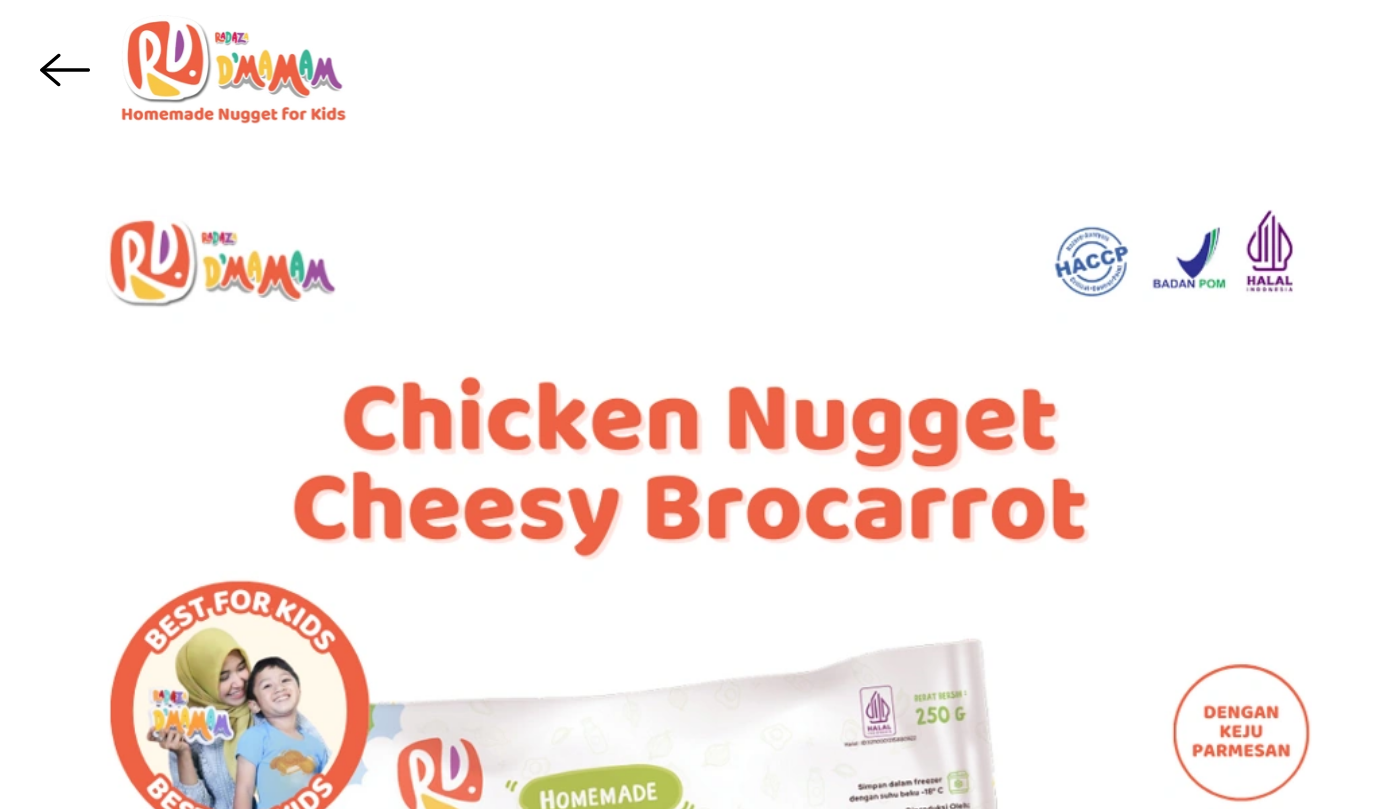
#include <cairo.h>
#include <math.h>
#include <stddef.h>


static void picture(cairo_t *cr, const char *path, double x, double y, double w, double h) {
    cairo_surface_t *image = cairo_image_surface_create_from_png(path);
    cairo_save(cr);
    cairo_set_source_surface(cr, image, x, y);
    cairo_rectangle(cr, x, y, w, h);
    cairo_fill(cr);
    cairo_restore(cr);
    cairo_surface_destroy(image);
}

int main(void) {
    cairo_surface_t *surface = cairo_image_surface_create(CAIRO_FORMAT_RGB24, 1379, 809);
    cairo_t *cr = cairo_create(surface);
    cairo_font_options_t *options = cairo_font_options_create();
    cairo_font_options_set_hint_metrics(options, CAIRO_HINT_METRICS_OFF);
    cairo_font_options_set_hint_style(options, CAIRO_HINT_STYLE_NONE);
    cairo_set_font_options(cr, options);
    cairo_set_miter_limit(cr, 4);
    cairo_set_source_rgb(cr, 1, 1, 1);
    cairo_paint(cr);
    picture(cr, "img1.png", 40, 53, 50, 34);
    picture(cr, "img2.png", 120, 15, 227, 110);
    picture(cr, "img3.png", 105, 209, 1207, 600);
    cairo_surface_write_to_png(surface, "page.png");
    cairo_font_options_destroy(options);
    cairo_destroy(cr);
    cairo_surface_destroy(surface);
    return 0;
}
